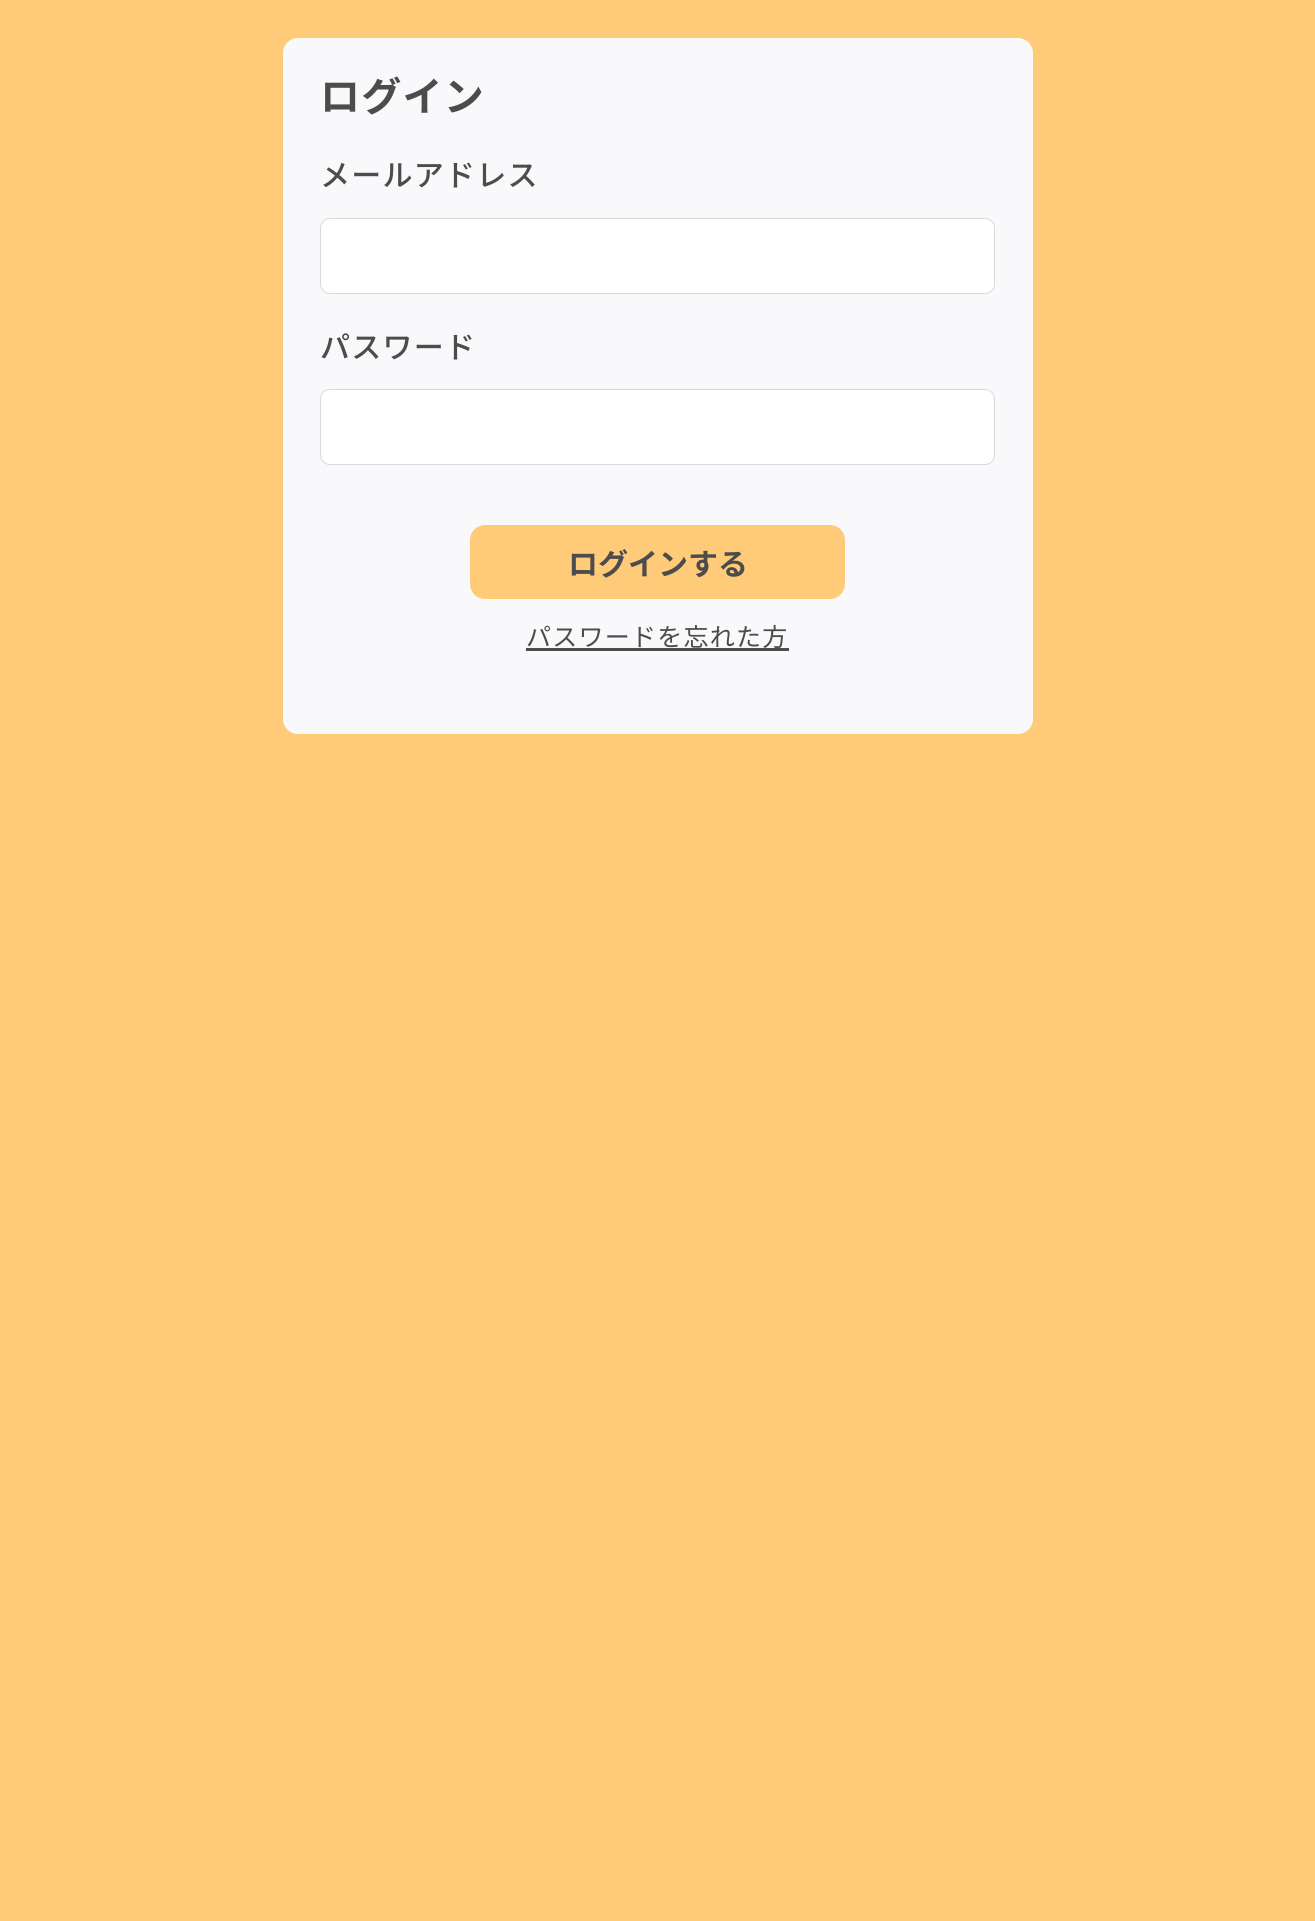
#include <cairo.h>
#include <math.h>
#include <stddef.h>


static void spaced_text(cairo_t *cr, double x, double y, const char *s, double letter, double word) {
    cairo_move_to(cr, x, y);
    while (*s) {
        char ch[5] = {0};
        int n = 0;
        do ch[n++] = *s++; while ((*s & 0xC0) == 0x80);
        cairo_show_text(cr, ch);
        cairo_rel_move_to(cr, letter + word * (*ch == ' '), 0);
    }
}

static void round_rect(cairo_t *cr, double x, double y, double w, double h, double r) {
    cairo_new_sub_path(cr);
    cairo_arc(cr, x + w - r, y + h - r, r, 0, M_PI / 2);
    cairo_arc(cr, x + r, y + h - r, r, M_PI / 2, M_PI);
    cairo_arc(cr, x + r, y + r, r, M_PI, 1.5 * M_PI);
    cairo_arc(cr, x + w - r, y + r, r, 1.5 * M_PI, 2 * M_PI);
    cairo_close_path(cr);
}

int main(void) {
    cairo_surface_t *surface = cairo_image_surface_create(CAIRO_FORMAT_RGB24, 1315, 1921);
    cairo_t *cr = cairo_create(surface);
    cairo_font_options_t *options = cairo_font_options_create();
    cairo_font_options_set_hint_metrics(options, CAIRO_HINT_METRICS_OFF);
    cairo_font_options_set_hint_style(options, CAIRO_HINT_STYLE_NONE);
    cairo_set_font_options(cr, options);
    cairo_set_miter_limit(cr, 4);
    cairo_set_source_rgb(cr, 1, 0.796, 0.471);
    cairo_paint(cr);
    cairo_set_source_rgb(cr, 0.973, 0.973, 0.984);
    round_rect(cr, 283, 38, 750, 696, 15);
    cairo_fill(cr);
    cairo_select_font_face(cr, "Noto Sans JP", CAIRO_FONT_SLANT_NORMAL, CAIRO_FONT_WEIGHT_BOLD);
    cairo_set_font_size(cr, 40);
    cairo_set_source_rgb(cr, 0.302, 0.298, 0.298);
    spaced_text(cr, 320, 111, "ログイン", 1.25, 0);
    cairo_select_font_face(cr, "Noto Sans JP Medium", CAIRO_FONT_SLANT_NORMAL, CAIRO_FONT_WEIGHT_NORMAL);
    cairo_set_font_size(cr, 30);
    spaced_text(cr, 320, 186, "メールアドレス", 1.25, 0);
    cairo_set_source_rgb(cr, 1, 1, 1);
    round_rect(cr, 320.5, 218.5, 674, 75, 9.5);
    cairo_fill_preserve(cr);
    cairo_set_source_rgb(cr, 0.851, 0.851, 0.851);
    cairo_set_line_width(cr, 1);
    cairo_stroke(cr);
    cairo_set_source_rgb(cr, 0.302, 0.298, 0.298);
    spaced_text(cr, 320, 358, "パスワード", 1.25, 0);
    cairo_set_source_rgb(cr, 1, 1, 1);
    round_rect(cr, 320.5, 389.5, 674, 75, 9.5);
    cairo_fill_preserve(cr);
    cairo_set_source_rgb(cr, 0.851, 0.851, 0.851);
    cairo_stroke(cr);
    cairo_set_source_rgb(cr, 1, 0.796, 0.471);
    round_rect(cr, 471.5, 526.5, 372, 71, 13.5);
    cairo_fill_preserve(cr);
    cairo_set_line_width(cr, 3);
    cairo_stroke(cr);
    cairo_select_font_face(cr, "Noto Sans JP", CAIRO_FONT_SLANT_NORMAL, CAIRO_FONT_WEIGHT_BOLD);
    cairo_set_source_rgb(cr, 0.302, 0.298, 0.298);
    cairo_move_to(cr, 568, 575);
    cairo_show_text(cr, "ログインする");
    cairo_rectangle(cr, 526, 648, 263, 3);
    cairo_fill(cr);
    cairo_select_font_face(cr, "Noto Sans JP", CAIRO_FONT_SLANT_NORMAL, CAIRO_FONT_WEIGHT_NORMAL);
    cairo_set_font_size(cr, 25);
    spaced_text(cr, 526, 646, "パスワードを忘れた方", 1.25, 0);
    cairo_surface_write_to_png(surface, "page.png");
    cairo_font_options_destroy(options);
    cairo_destroy(cr);
    cairo_surface_destroy(surface);
    return 0;
}
